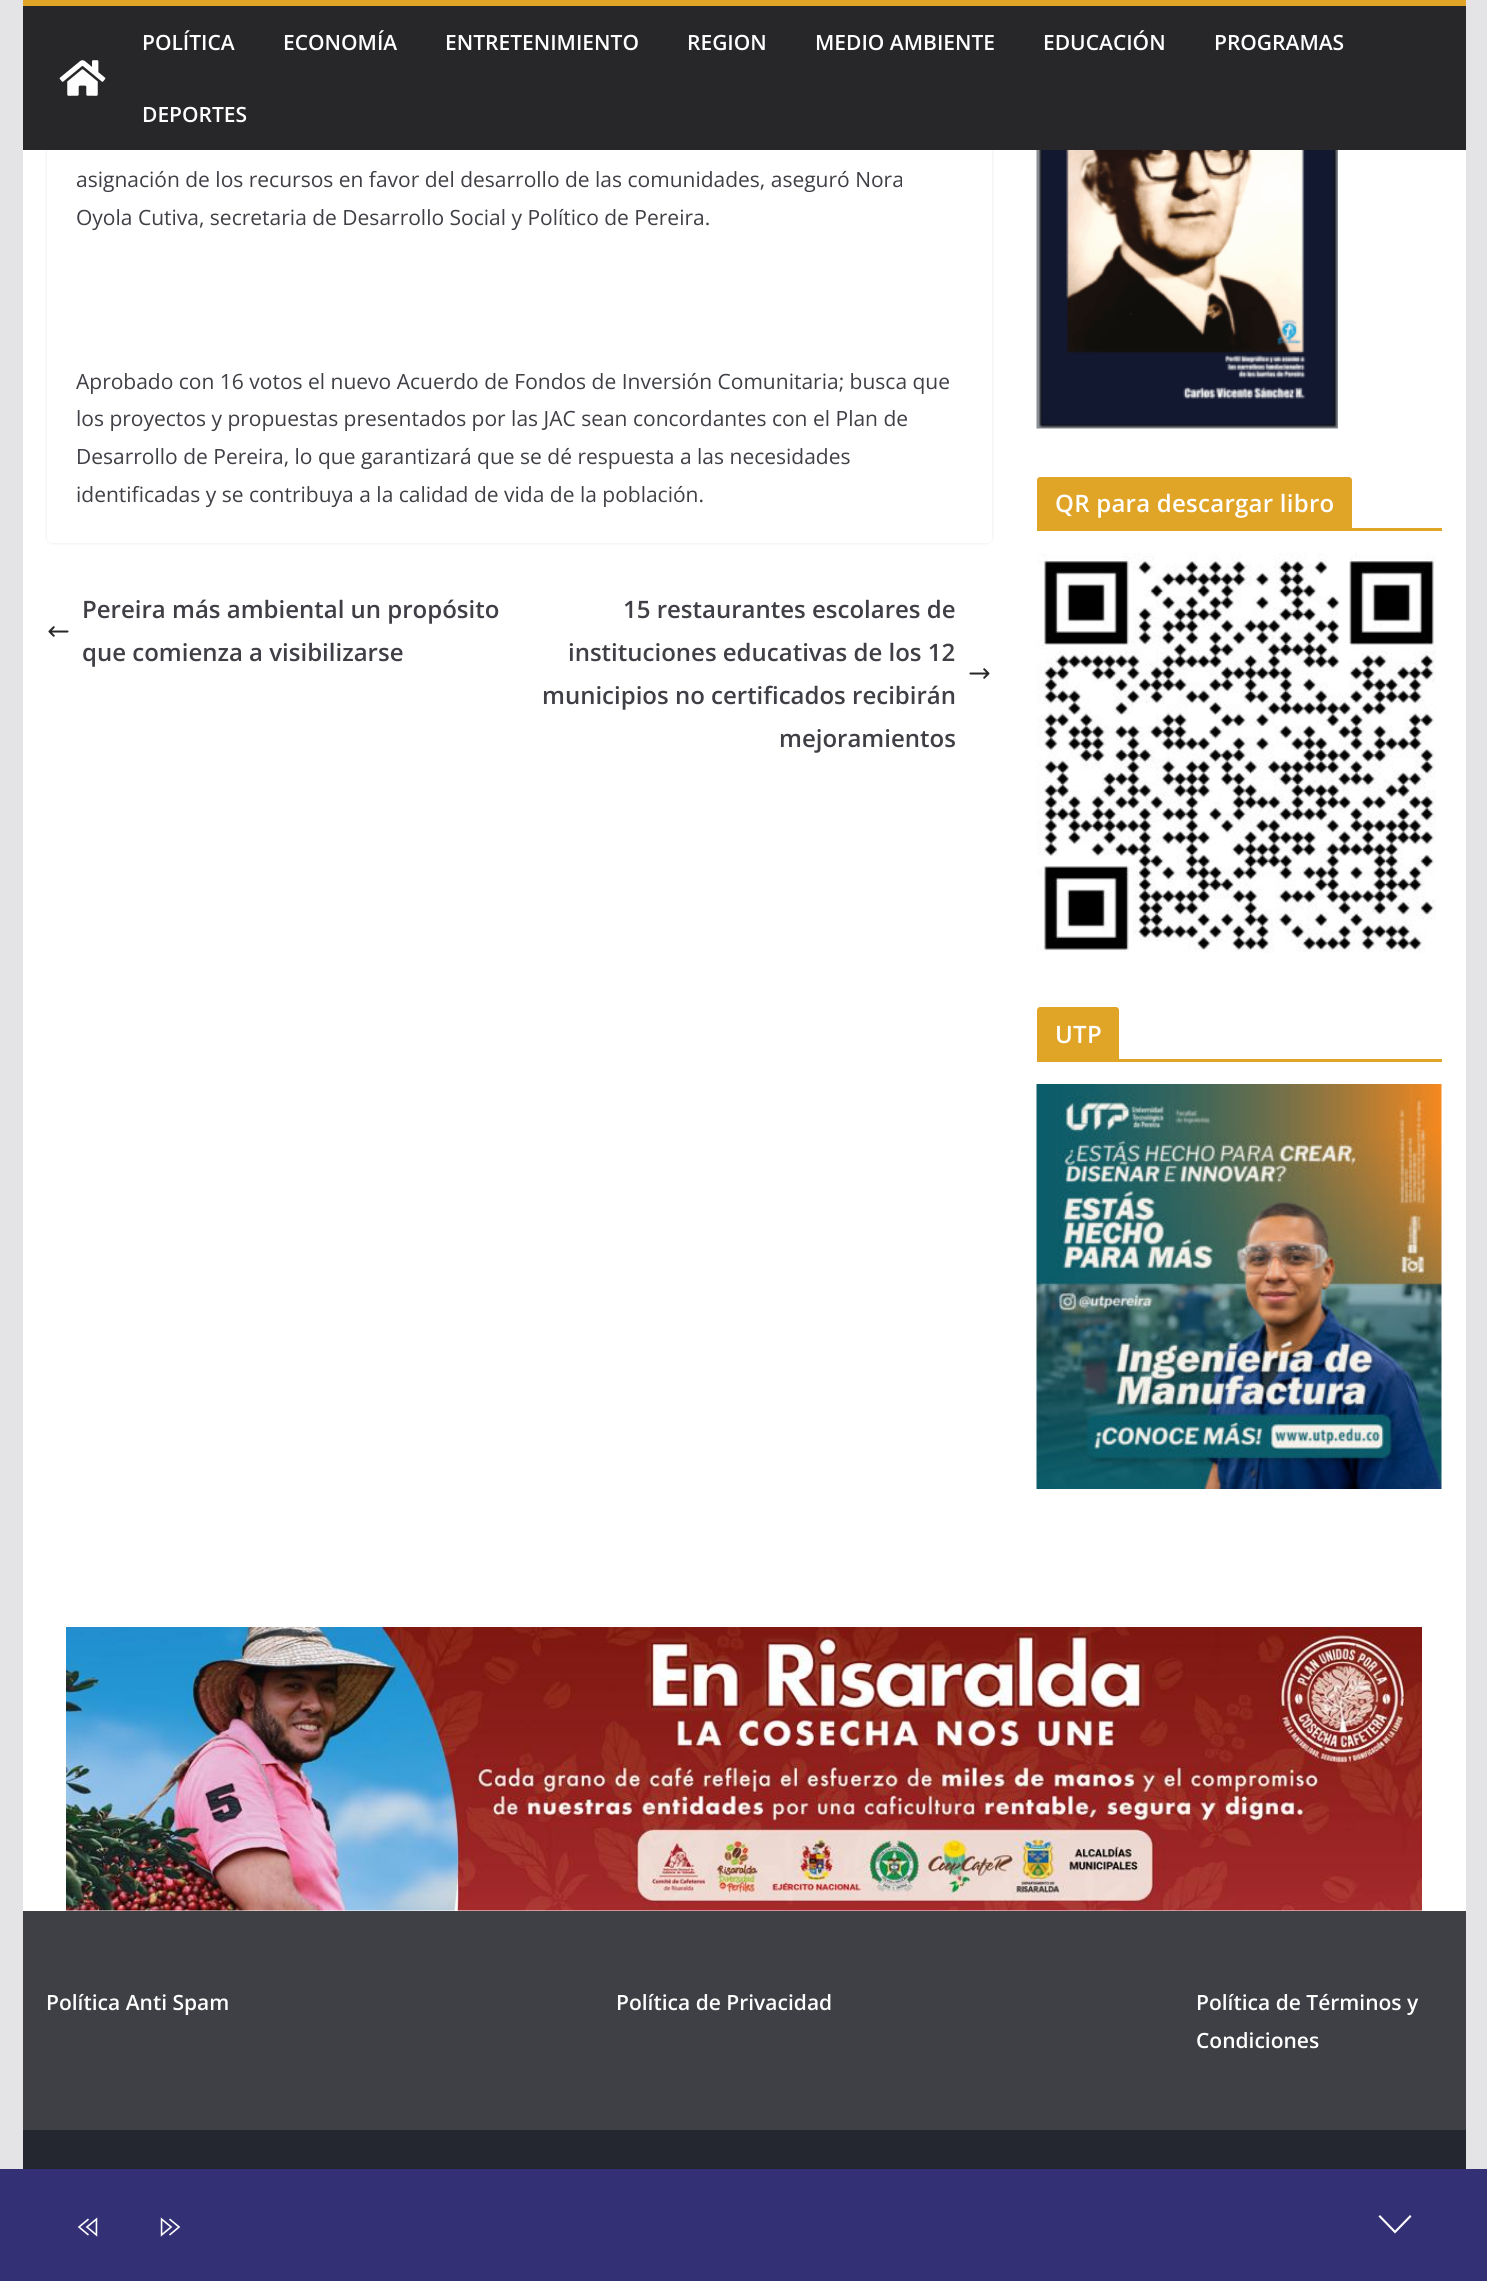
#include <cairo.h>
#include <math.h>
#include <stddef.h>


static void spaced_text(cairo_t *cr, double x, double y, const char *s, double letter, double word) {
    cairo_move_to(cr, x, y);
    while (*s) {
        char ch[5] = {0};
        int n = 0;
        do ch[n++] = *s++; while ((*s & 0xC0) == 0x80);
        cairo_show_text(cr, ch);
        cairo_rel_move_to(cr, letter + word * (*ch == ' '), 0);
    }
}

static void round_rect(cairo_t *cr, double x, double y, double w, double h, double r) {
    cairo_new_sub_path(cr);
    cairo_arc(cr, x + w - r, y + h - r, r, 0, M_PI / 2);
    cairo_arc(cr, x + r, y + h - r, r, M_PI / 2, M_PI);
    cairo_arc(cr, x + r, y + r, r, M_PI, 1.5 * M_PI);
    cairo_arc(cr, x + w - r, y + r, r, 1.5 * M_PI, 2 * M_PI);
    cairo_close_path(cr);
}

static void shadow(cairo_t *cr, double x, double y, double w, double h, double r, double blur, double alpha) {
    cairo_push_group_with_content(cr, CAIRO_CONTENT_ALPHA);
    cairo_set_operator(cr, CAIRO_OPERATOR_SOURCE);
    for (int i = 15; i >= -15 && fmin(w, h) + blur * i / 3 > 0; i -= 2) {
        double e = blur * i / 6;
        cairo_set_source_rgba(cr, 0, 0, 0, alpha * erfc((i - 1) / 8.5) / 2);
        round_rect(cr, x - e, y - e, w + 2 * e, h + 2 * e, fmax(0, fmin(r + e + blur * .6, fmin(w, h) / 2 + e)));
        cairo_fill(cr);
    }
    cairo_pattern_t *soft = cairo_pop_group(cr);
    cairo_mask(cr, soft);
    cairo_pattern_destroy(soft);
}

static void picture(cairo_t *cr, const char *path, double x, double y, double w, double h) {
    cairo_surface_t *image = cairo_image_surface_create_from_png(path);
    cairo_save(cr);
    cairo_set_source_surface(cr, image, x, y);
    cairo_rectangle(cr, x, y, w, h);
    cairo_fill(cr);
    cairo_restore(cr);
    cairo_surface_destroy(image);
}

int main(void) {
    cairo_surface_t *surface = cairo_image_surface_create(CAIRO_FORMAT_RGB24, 1487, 2281);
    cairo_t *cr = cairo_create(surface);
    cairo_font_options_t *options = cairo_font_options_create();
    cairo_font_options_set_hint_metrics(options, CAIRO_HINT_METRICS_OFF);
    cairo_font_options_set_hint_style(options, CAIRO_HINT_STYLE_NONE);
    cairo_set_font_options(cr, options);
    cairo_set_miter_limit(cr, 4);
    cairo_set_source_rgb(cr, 0.894, 0.894, 0.906);
    cairo_paint(cr);
    cairo_set_source_rgb(cr, 1, 1, 1);
    cairo_rectangle(cr, 23, 150, 1443, 1761);
    cairo_fill(cr);
    cairo_save(cr);
    cairo_set_fill_rule(cr, CAIRO_FILL_RULE_EVEN_ODD);
    cairo_new_path(cr);
    cairo_move_to(cr, 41, 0);
    cairo_line_to(cr, 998, 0);
    cairo_line_to(cr, 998, 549);
    cairo_line_to(cr, 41, 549);
    cairo_close_path(cr);
    cairo_move_to(cr, 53, -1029);
    cairo_line_to(cr, 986, -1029);
    cairo_curve_to(cr, 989.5, -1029, 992, -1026.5, 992, -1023);
    cairo_line_to(cr, 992, 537);
    cairo_curve_to(cr, 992, 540.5, 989.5, 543, 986, 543);
    cairo_line_to(cr, 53, 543);
    cairo_curve_to(cr, 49.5, 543, 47, 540.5, 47, 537);
    cairo_line_to(cr, 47, -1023);
    cairo_curve_to(cr, 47, -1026.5, 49.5, -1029, 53, -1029);
    cairo_close_path(cr);
    cairo_clip(cr);
    cairo_set_source_rgb(cr, 0.894, 0.894, 0.906);
    shadow(cr, 47, -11, 945, 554, 6, 1.5, 1);
    cairo_restore(cr);
    cairo_set_source_rgb(cr, 0.153, 0.153, 0.165);
    cairo_rectangle(cr, 23, 6, 1443, 144);
    cairo_fill(cr);
    cairo_set_source_rgb(cr, 0.878, 0.643, 0.153);
    cairo_rectangle(cr, 23, 0, 1443, 6);
    cairo_fill(cr);
    picture(cr, "img1.png", 59, 60, 47, 36);
    cairo_select_font_face(cr, "Open Sans SemiBold", CAIRO_FONT_SLANT_NORMAL, CAIRO_FONT_WEIGHT_NORMAL);
    cairo_set_font_size(cr, 21);
    cairo_set_source_rgb(cr, 1, 1, 1);
    cairo_move_to(cr, 142, 50);
    cairo_show_text(cr, "POLÍTICA");
    cairo_move_to(cr, 283, 50);
    cairo_show_text(cr, "ECONOMÍA");
    cairo_move_to(cr, 445, 50);
    cairo_show_text(cr, "ENTRETENIMIENTO");
    cairo_move_to(cr, 687, 50);
    cairo_show_text(cr, "REGION");
    cairo_move_to(cr, 815, 50);
    cairo_show_text(cr, "MEDIO AMBIENTE");
    cairo_move_to(cr, 1043, 50);
    cairo_show_text(cr, "EDUCACIÓN");
    cairo_move_to(cr, 1214, 50);
    cairo_show_text(cr, "PROGRAMAS");
    cairo_move_to(cr, 142, 122);
    cairo_show_text(cr, "DEPORTES");
    cairo_select_font_face(cr, "Open Sans", CAIRO_FONT_SLANT_NORMAL, CAIRO_FONT_WEIGHT_NORMAL);
    cairo_set_source_rgb(cr, 0.247, 0.247, 0.275);
    cairo_move_to(cr, 76, 187);
    cairo_show_text(cr, "asignación de los recursos en favor del desarrollo de las comunidades, aseguró Nora");
    cairo_move_to(cr, 76, 225);
    cairo_show_text(cr, "Oyola Cutiva, secretaria de Desarrollo Social y Político de Pereira.");
    cairo_move_to(cr, 76, 389);
    cairo_show_text(cr, "Aprobado con 16 votos el nuevo Acuerdo de Fondos de Inversión Comunitaria; busca que");
    cairo_move_to(cr, 76, 426);
    cairo_show_text(cr, "los proyectos y propuestas presentados por las JAC sean concordantes con el Plan de");
    cairo_move_to(cr, 76, 464);
    cairo_show_text(cr, "Desarrollo de Pereira, lo que garantizará que se dé respuesta a las necesidades");
    cairo_move_to(cr, 76, 502);
    cairo_show_text(cr, "identificadas y se contribuya a la calidad de vida de la población.");
    cairo_select_font_face(cr, "Open Sans SemiBold", CAIRO_FONT_SLANT_NORMAL, CAIRO_FONT_WEIGHT_NORMAL);
    cairo_set_font_size(cr, 24);
    cairo_move_to(cr, 82, 618);
    cairo_show_text(cr, "Pereira más ambiental un propósito");
    picture(cr, "img2.png", 48, 626, 21, 11);
    cairo_move_to(cr, 82, 661);
    cairo_show_text(cr, "que comienza a visibilizarse");
    cairo_move_to(cr, 623, 618);
    cairo_show_text(cr, "15 restaurantes escolares de");
    cairo_move_to(cr, 568, 661);
    cairo_show_text(cr, "instituciones educativas de los 12");
    picture(cr, "img3.png", 969, 668, 21, 11);
    cairo_move_to(cr, 542, 704);
    cairo_show_text(cr, "municipios no certificados recibirán");
    cairo_move_to(cr, 779, 747);
    cairo_show_text(cr, "mejoramientos");
    picture(cr, "img4.png", 1036, 150, 302, 279);
    cairo_set_source_rgb(cr, 0.878, 0.643, 0.153);
    cairo_rectangle(cr, 1037, 528, 405, 3);
    cairo_fill(cr);
    cairo_new_path(cr);
    cairo_move_to(cr, 1040, 477);
    cairo_line_to(cr, 1349, 477);
    cairo_curve_to(cr, 1350.5, 477, 1352, 478.5, 1352, 480);
    cairo_line_to(cr, 1352, 528);
    cairo_line_to(cr, 1037, 528);
    cairo_line_to(cr, 1037, 480);
    cairo_curve_to(cr, 1037, 478.5, 1038.5, 477, 1040, 477);
    cairo_close_path(cr);
    cairo_fill(cr);
    cairo_set_source_rgb(cr, 1, 1, 1);
    spaced_text(cr, 1055, 512, "QR para descargar libro", 0.25, 0);
    picture(cr, "img5.png", 1036, 553, 400, 400);
    cairo_set_source_rgb(cr, 0.878, 0.643, 0.153);
    cairo_rectangle(cr, 1037, 1059, 405, 3);
    cairo_fill(cr);
    cairo_new_path(cr);
    cairo_move_to(cr, 1040, 1007);
    cairo_line_to(cr, 1116, 1007);
    cairo_curve_to(cr, 1117.5, 1007, 1119, 1008.5, 1119, 1010);
    cairo_line_to(cr, 1119, 1059);
    cairo_line_to(cr, 1037, 1059);
    cairo_line_to(cr, 1037, 1010);
    cairo_curve_to(cr, 1037, 1008.5, 1038.5, 1007, 1040, 1007);
    cairo_close_path(cr);
    cairo_fill(cr);
    cairo_set_source_rgb(cr, 1, 1, 1);
    spaced_text(cr, 1055, 1043, "UTP", 0.25, 0);
    picture(cr, "img6.png", 1036, 1084, 406, 405);
    picture(cr, "img7.png", 66, 1627, 1356, 284);
    cairo_set_source_rgb(cr, 0.247, 0.247, 0.275);
    cairo_rectangle(cr, 23, 1911, 1443, 219);
    cairo_fill(cr);
    cairo_set_font_size(cr, 21);
    cairo_set_source_rgb(cr, 1, 1, 1);
    cairo_move_to(cr, 46, 2010);
    cairo_show_text(cr, "Política Anti Spam");
    cairo_move_to(cr, 616, 2010);
    cairo_show_text(cr, "Política de Privacidad");
    cairo_move_to(cr, 1196, 2010);
    cairo_show_text(cr, "Política de Términos y");
    cairo_move_to(cr, 1196, 2048);
    cairo_show_text(cr, "Condiciones");
    cairo_set_source_rgb(cr, 0.145, 0.153, 0.188);
    cairo_rectangle(cr, 23, 2130, 1443, 39);
    cairo_fill(cr);
    cairo_set_source_rgb(cr, 0.204, 0.188, 0.463);
    cairo_rectangle(cr, 0, 2169, 1487, 112);
    cairo_fill(cr);
    picture(cr, "img8.png", 77, 2217, 21, 20);
    picture(cr, "img9.png", 160, 2217, 21, 20);
    cairo_set_source_rgb(cr, 1, 1, 1);
    cairo_new_path(cr);
    cairo_move_to(cr, 1411.5, 2216.5);
    cairo_line_to(cr, 1395, 2233.5);
    cairo_line_to(cr, 1378.5, 2216.5);
    cairo_line_to(cr, 1380, 2215);
    cairo_line_to(cr, 1395, 2230.5);
    cairo_line_to(cr, 1410, 2215);
    cairo_close_path(cr);
    cairo_fill(cr);
    cairo_surface_write_to_png(surface, "page.png");
    cairo_font_options_destroy(options);
    cairo_destroy(cr);
    cairo_surface_destroy(surface);
    return 0;
}
